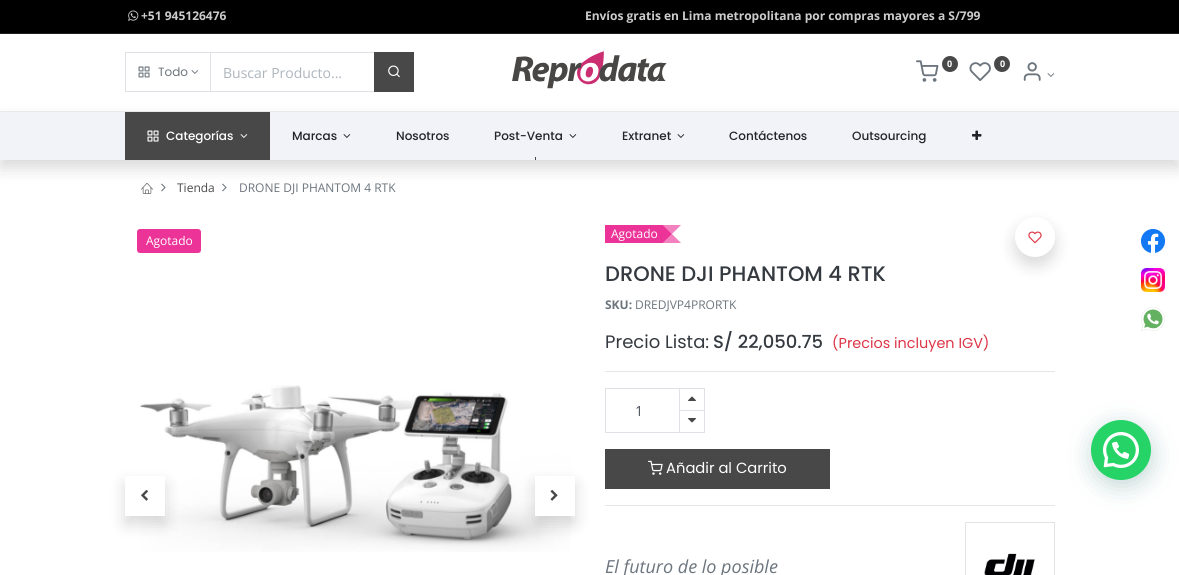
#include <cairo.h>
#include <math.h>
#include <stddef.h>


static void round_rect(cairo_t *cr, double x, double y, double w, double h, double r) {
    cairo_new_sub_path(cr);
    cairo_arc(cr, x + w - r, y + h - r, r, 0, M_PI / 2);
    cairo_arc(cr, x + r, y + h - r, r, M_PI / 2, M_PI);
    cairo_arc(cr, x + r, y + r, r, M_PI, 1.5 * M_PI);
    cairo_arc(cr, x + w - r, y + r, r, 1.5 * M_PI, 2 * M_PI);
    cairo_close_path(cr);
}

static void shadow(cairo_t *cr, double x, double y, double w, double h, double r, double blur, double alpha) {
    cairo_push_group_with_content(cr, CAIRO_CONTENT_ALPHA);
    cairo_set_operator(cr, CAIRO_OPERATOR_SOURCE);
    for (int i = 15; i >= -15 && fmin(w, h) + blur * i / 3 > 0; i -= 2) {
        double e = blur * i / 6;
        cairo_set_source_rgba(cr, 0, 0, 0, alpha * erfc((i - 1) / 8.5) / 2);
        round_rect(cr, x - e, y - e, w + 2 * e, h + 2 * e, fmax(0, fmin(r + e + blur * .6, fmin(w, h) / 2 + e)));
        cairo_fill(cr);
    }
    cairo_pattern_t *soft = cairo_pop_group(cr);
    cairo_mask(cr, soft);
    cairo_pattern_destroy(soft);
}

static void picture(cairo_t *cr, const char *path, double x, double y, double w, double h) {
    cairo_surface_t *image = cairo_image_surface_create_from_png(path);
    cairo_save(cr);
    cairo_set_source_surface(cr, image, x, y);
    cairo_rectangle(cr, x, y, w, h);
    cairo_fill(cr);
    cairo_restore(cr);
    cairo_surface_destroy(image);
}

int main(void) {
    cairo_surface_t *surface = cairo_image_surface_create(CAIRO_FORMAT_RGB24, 1179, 575);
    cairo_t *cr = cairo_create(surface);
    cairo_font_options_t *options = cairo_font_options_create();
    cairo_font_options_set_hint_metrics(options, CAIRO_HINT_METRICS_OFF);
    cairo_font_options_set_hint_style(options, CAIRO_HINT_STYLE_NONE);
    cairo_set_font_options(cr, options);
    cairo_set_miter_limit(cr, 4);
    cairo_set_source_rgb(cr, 1, 1, 1);
    cairo_paint(cr);
    cairo_set_source_rgb(cr, 0, 0, 0);
    cairo_rectangle(cr, 0, 0, 1179, 33);
    cairo_fill(cr);
    cairo_set_source_rgb(cr, 0.122, 0.122, 0.122);
    cairo_rectangle(cr, 0, 33, 1179, 1);
    cairo_fill(cr);
    picture(cr, "img1.png", 128, 10, 11, 11);
    cairo_select_font_face(cr, "Open Sans", CAIRO_FONT_SLANT_NORMAL, CAIRO_FONT_WEIGHT_BOLD);
    cairo_set_font_size(cr, 12);
    cairo_set_source_rgb(cr, 0.8, 0.8, 0.8);
    cairo_move_to(cr, 141, 20);
    cairo_show_text(cr, "+51 945126476                                                                                                                   Envíos gratis en Lima metropolitana por compras mayores a S/799");
    cairo_set_source_rgb(cr, 0.929, 0.933, 0.937);
    cairo_rectangle(cr, 0, 111, 1179, 1);
    cairo_fill(cr);
    picture(cr, "img2.png", 512, 51, 155, 38);
    picture(cr, "img3.png", 916, 60, 23, 22);
    cairo_set_source_rgb(cr, 0.282, 0.282, 0.282);
    cairo_arc(cr, 950, 64, 8, 0, 2 * M_PI);
    cairo_fill(cr);
    cairo_set_font_size(cr, 9);
    cairo_set_source_rgb(cr, 1, 1, 1);
    cairo_move_to(cr, 947, 67);
    cairo_show_text(cr, "0");
    picture(cr, "img4.png", 969, 62, 22, 19);
    cairo_set_source_rgb(cr, 0.282, 0.282, 0.282);
    cairo_arc(cr, 1002, 64, 8, 0, 2 * M_PI);
    cairo_fill(cr);
    cairo_set_source_rgb(cr, 1, 1, 1);
    cairo_move_to(cr, 1000, 67);
    cairo_show_text(cr, "0");
    picture(cr, "img5.png", 1023, 62, 18, 19);
    picture(cr, "img6.png", 1047, 73, 8, 4);
    cairo_rectangle(cr, 210.5, 52.5, 164, 39);
    cairo_set_source_rgb(cr, 0.871, 0.886, 0.902);
    cairo_set_line_width(cr, 1);
    cairo_stroke(cr);
    cairo_rectangle(cr, 125.5, 52.5, 85, 39);
    cairo_stroke(cr);
    picture(cr, "img7.png", 138, 66, 12, 12);
    cairo_select_font_face(cr, "Poppins", CAIRO_FONT_SLANT_NORMAL, CAIRO_FONT_WEIGHT_NORMAL);
    cairo_set_font_size(cr, 12);
    cairo_set_source_rgb(cr, 0.424, 0.459, 0.49);
    cairo_move_to(cr, 158, 76);
    cairo_show_text(cr, "Todo");
    picture(cr, "img6.png", 191, 70, 8, 4);
    cairo_select_font_face(cr, "Open Sans", CAIRO_FONT_SLANT_NORMAL, CAIRO_FONT_WEIGHT_NORMAL);
    cairo_set_font_size(cr, 14);
    cairo_set_source_rgb(cr, 0.678, 0.71, 0.741);
    cairo_move_to(cr, 223, 78);
    cairo_show_text(cr, "Buscar Producto...");
    cairo_set_source_rgb(cr, 0.282, 0.282, 0.282);
    cairo_rectangle(cr, 374, 52, 40, 40);
    cairo_fill(cr);
    picture(cr, "img8.png", 388, 65, 12, 13);
    picture(cr, "img13.png", 141, 183, 12, 11);
    picture(cr, "img14.png", 161, 183, 5, 9);
    picture(cr, "img14.png", 222, 183, 5, 9);
    cairo_set_source_rgb(cr, 0, 0, 0);
    shadow(cr, 0, 120, 1179, 48, 0, 8, 0.15);
    cairo_set_source_rgb(cr, 0.945, 0.953, 0.973);
    cairo_rectangle(cr, 0, 112, 1179, 48);
    cairo_fill(cr);
    cairo_set_source_rgb(cr, 0.282, 0.282, 0.282);
    cairo_rectangle(cr, 125, 112, 145, 48);
    cairo_fill(cr);
    picture(cr, "img9.png", 147, 130, 12, 12);
    cairo_select_font_face(cr, "Poppins Medium", CAIRO_FONT_SLANT_NORMAL, CAIRO_FONT_WEIGHT_NORMAL);
    cairo_set_font_size(cr, 12);
    cairo_set_source_rgb(cr, 1, 1, 1);
    cairo_move_to(cr, 166, 140);
    cairo_show_text(cr, "Categorías");
    picture(cr, "img10.png", 240, 134, 8, 4);
    cairo_set_source_rgb(cr, 0.129, 0.145, 0.161);
    cairo_move_to(cr, 292, 140);
    cairo_show_text(cr, "Marcas");
    picture(cr, "img11.png", 343, 134, 8, 4);
    cairo_move_to(cr, 396, 140);
    cairo_show_text(cr, "Nosotros");
    cairo_move_to(cr, 494, 140);
    cairo_show_text(cr, "Post-Venta");
    picture(cr, "img11.png", 569, 134, 8, 4);
    cairo_set_source_rgb(cr, 0.282, 0.282, 0.282);
    cairo_rectangle(cr, 535, 157, 1, 3);
    cairo_fill(cr);
    cairo_set_source_rgb(cr, 0.129, 0.145, 0.161);
    cairo_move_to(cr, 622, 140);
    cairo_show_text(cr, "Extranet");
    picture(cr, "img11.png", 677, 134, 8, 4);
    cairo_move_to(cr, 729, 140);
    cairo_show_text(cr, "Contáctenos");
    cairo_move_to(cr, 852, 140);
    cairo_show_text(cr, "Outsourcing");
    picture(cr, "img12.png", 972, 130, 10, 10);
    cairo_select_font_face(cr, "Open Sans", CAIRO_FONT_SLANT_NORMAL, CAIRO_FONT_WEIGHT_NORMAL);
    cairo_set_source_rgb(cr, 0.282, 0.282, 0.282);
    cairo_move_to(cr, 177, 192);
    cairo_show_text(cr, "Tienda");
    cairo_set_source_rgb(cr, 0.424, 0.459, 0.49);
    cairo_move_to(cr, 239, 192);
    cairo_show_text(cr, "DRONE DJI PHANTOM 4 RTK");
    cairo_set_source_rgb(cr, 0.922, 0.2, 0.596);
    round_rect(cr, 137, 229, 64, 24, 3);
    cairo_fill(cr);
    cairo_set_source_rgb(cr, 1, 1, 1);
    cairo_move_to(cr, 146, 245);
    cairo_show_text(cr, "Agotado");
    picture(cr, "img15.png", 140, 385, 431, 167);
    cairo_set_source_rgb(cr, 0, 0, 0);
    shadow(cr, 125, 484, 40, 40, 0, 8, 0.15);
    cairo_set_source_rgb(cr, 1, 1, 1);
    cairo_rectangle(cr, 125, 476, 40, 40);
    cairo_fill(cr);
    picture(cr, "img16.png", 141, 489, 7, 12);
    cairo_set_source_rgb(cr, 0, 0, 0);
    shadow(cr, 535, 484, 40, 40, 0, 8, 0.15);
    cairo_set_source_rgb(cr, 1, 1, 1);
    cairo_rectangle(cr, 535, 476, 40, 40);
    cairo_fill(cr);
    picture(cr, "img17.png", 550, 489, 8, 12);
    cairo_set_source_rgb(cr, 0.922, 0.2, 0.596);
    cairo_rectangle(cr, 605, 225, 58, 18);
    cairo_fill(cr);
    cairo_set_source_rgb(cr, 1, 1, 1);
    cairo_move_to(cr, 611, 238);
    cairo_show_text(cr, "Agotado");
    cairo_set_source_rgb(cr, 0.953, 0.502, 0.749);
    cairo_new_path(cr);
    cairo_move_to(cr, 663, 225);
    cairo_line_to(cr, 681, 225);
    cairo_line_to(cr, 672, 234);
    cairo_close_path(cr);
    cairo_move_to(cr, 681, 243);
    cairo_line_to(cr, 663, 243);
    cairo_line_to(cr, 672, 234);
    cairo_close_path(cr);
    cairo_fill(cr);
    cairo_set_source_rgba(cr, 0.902, 0, 0.494, 0.8);
    cairo_new_path(cr);
    cairo_move_to(cr, 663, 243);
    cairo_line_to(cr, 663, 225);
    cairo_line_to(cr, 672, 234);
    cairo_close_path(cr);
    cairo_fill(cr);
    cairo_select_font_face(cr, "Poppins Medium", CAIRO_FONT_SLANT_NORMAL, CAIRO_FONT_WEIGHT_NORMAL);
    cairo_set_font_size(cr, 21);
    cairo_set_source_rgb(cr, 0.204, 0.227, 0.251);
    cairo_move_to(cr, 605, 281);
    cairo_show_text(cr, "DRONE DJI PHANTOM 4 RTK");
    cairo_select_font_face(cr, "Open Sans", CAIRO_FONT_SLANT_NORMAL, CAIRO_FONT_WEIGHT_BOLD);
    cairo_set_font_size(cr, 12);
    cairo_set_source_rgb(cr, 0.424, 0.459, 0.49);
    cairo_move_to(cr, 605, 309);
    cairo_show_text(cr, "SKU:");
    cairo_select_font_face(cr, "Open Sans", CAIRO_FONT_SLANT_NORMAL, CAIRO_FONT_WEIGHT_NORMAL);
    cairo_move_to(cr, 635, 309);
    cairo_show_text(cr, "DREDJVP4PRORTK");
    cairo_set_source_rgb(cr, 0, 0, 0);
    shadow(cr, 1015, 225, 40, 40, 20, 8, 0.15);
    cairo_set_source_rgb(cr, 1, 1, 1);
    cairo_arc(cr, 1035, 237, 20, 0, 2 * M_PI);
    cairo_fill(cr);
    picture(cr, "img18.png", 1028, 231, 14, 13);
    cairo_select_font_face(cr, "Poppins", CAIRO_FONT_SLANT_NORMAL, CAIRO_FONT_WEIGHT_NORMAL);
    cairo_set_font_size(cr, 18);
    cairo_set_source_rgb(cr, 0.204, 0.227, 0.251);
    cairo_move_to(cr, 605, 348);
    cairo_show_text(cr, "Precio Lista:");
    cairo_select_font_face(cr, "Poppins Medium", CAIRO_FONT_SLANT_NORMAL, CAIRO_FONT_WEIGHT_NORMAL);
    cairo_move_to(cr, 713, 348);
    cairo_show_text(cr, "S/ 22,050.75");
    cairo_select_font_face(cr, "Poppins", CAIRO_FONT_SLANT_NORMAL, CAIRO_FONT_WEIGHT_NORMAL);
    cairo_set_font_size(cr, 14.4);
    cairo_set_source_rgb(cr, 0.863, 0.208, 0.271);
    cairo_move_to(cr, 832, 348);
    cairo_show_text(cr, "(Precios incluyen IGV)");
    cairo_set_source_rgb(cr, 0.902, 0.902, 0.902);
    cairo_rectangle(cr, 605, 371, 450, 1);
    cairo_fill(cr);
    cairo_rectangle(cr, 605.5, 388.5, 99, 44);
    cairo_set_source_rgb(cr, 0.871, 0.886, 0.902);
    cairo_stroke(cr);
    cairo_select_font_face(cr, "Open Sans", CAIRO_FONT_SLANT_NORMAL, CAIRO_FONT_WEIGHT_NORMAL);
    cairo_set_font_size(cr, 14);
    cairo_set_source_rgb(cr, 0.286, 0.314, 0.341);
    cairo_move_to(cr, 635, 416);
    cairo_show_text(cr, "1");
    cairo_set_source_rgb(cr, 0.871, 0.886, 0.902);
    cairo_rectangle(cr, 679, 410, 1, 22);
    cairo_fill(cr);
    cairo_rectangle(cr, 679, 410, 25, 1);
    cairo_fill(cr);
    cairo_rectangle(cr, 679, 389, 1, 22);
    cairo_fill(cr);
    picture(cr, "img19.png", 688, 396, 8, 5);
    picture(cr, "img20.png", 688, 418, 8, 5);
    cairo_set_source_rgb(cr, 0.282, 0.282, 0.282);
    cairo_rectangle(cr, 605, 449, 225, 40);
    cairo_fill(cr);
    picture(cr, "img21.png", 648, 460, 15, 15);
    cairo_select_font_face(cr, "Poppins", CAIRO_FONT_SLANT_NORMAL, CAIRO_FONT_WEIGHT_NORMAL);
    cairo_set_font_size(cr, 14.75);
    cairo_set_source_rgb(cr, 1, 1, 1);
    cairo_move_to(cr, 666, 473);
    cairo_show_text(cr, "Añadir al Carrito");
    cairo_set_source_rgb(cr, 0.902, 0.902, 0.902);
    cairo_rectangle(cr, 605, 505, 450, 1);
    cairo_fill(cr);
    cairo_select_font_face(cr, "Open Sans", CAIRO_FONT_SLANT_ITALIC, CAIRO_FONT_WEIGHT_NORMAL);
    cairo_set_font_size(cr, 18);
    cairo_set_source_rgb(cr, 0.424, 0.459, 0.49);
    cairo_move_to(cr, 605, 573);
    cairo_show_text(cr, "El futuro de lo posible");
    cairo_rectangle(cr, 965.5, 522.5, 89, 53);
    cairo_set_source_rgb(cr, 0.886, 0.89, 0.89);
    cairo_stroke(cr);
    picture(cr, "img22.png", 984, 553, 51, 22);
    picture(cr, "img23.png", 1141, 229, 24, 24);
    picture(cr, "img24.png", 1141, 268, 24, 24);
    picture(cr, "img25.png", 1141, 307, 24, 24);
    cairo_set_source_rgb(cr, 0.027, 0.369, 0.329);
    shadow(cr, 1092, 426, 60, 60, 30, 12, 0.24);
    cairo_set_source_rgb(cr, 0.145, 0.827, 0.4);
    cairo_arc(cr, 1121, 450, 30, 0, 2 * M_PI);
    cairo_fill(cr);
    picture(cr, "img26.png", 1103, 432, 36, 36);
    cairo_surface_write_to_png(surface, "page.png");
    cairo_font_options_destroy(options);
    cairo_destroy(cr);
    cairo_surface_destroy(surface);
    return 0;
}
